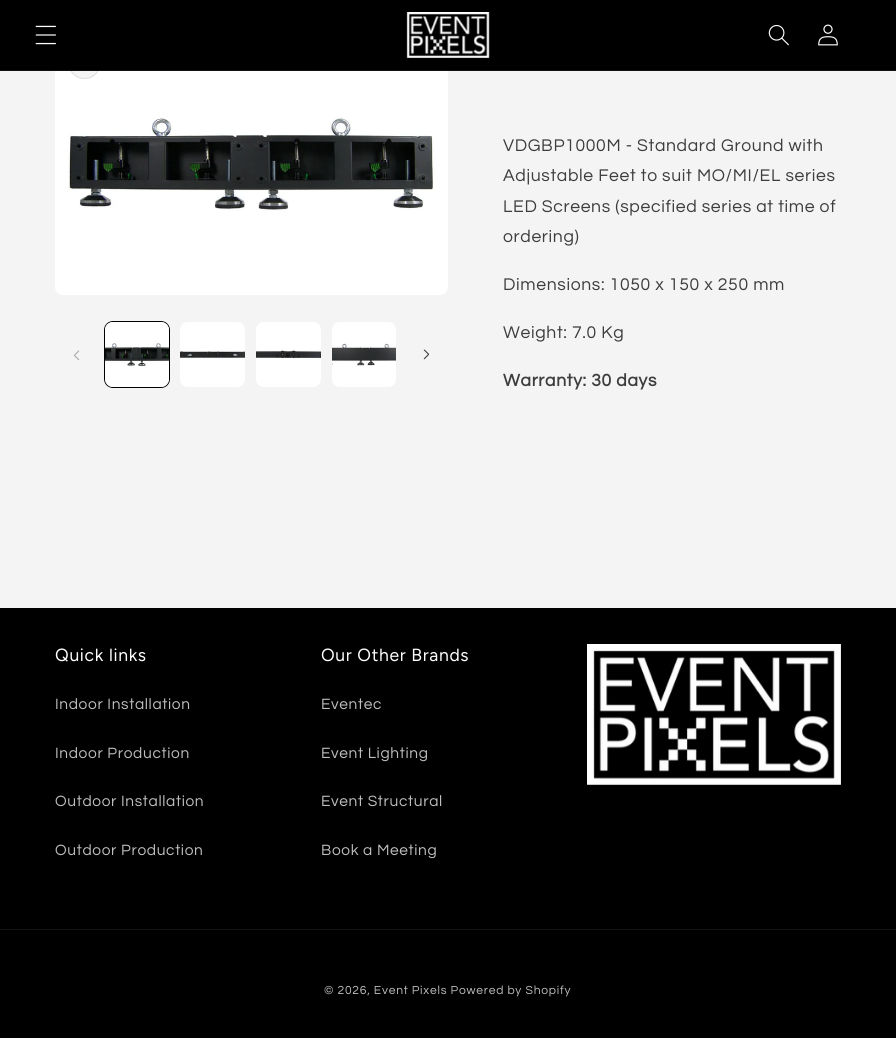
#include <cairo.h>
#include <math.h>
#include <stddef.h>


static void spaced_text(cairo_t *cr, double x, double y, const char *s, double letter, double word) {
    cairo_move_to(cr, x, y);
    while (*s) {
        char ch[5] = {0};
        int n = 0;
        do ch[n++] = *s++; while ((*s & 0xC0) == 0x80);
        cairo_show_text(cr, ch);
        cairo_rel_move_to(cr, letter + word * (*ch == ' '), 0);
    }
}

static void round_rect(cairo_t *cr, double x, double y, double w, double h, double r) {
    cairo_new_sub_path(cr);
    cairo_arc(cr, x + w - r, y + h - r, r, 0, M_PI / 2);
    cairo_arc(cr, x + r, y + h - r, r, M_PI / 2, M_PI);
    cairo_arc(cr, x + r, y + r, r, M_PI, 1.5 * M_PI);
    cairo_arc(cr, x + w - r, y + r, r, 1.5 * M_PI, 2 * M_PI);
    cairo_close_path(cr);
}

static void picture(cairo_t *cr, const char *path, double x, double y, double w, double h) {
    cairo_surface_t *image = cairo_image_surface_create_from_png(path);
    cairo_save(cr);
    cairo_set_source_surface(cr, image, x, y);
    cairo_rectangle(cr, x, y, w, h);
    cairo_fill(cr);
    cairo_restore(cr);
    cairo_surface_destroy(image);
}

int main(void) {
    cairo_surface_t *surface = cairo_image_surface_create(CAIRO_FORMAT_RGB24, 896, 1038);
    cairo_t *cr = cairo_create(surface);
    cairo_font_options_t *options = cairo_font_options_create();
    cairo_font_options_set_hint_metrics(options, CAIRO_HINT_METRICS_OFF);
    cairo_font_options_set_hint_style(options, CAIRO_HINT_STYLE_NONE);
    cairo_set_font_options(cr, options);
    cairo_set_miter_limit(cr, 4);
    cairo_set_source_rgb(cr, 0.957, 0.957, 0.957);
    cairo_paint(cr);
    picture(cr, "img5.png", 55, 71, 393, 224);
    cairo_set_source_rgb(cr, 0.957, 0.957, 0.957);
    cairo_arc(cr, 84.5, 62.5, 16.5, 0, 2 * M_PI);
    cairo_fill(cr);
    cairo_arc(cr, 84.5, 62.5, 16, 0, 2 * M_PI);
    cairo_set_source_rgba(cr, 0, 0, 0, 0.1);
    cairo_set_line_width(cr, 1);
    cairo_stroke(cr);
    cairo_set_source_rgb(cr, 0, 0, 0);
    cairo_rectangle(cr, 0, 0, 896, 70);
    cairo_fill(cr);
    cairo_set_source_rgb(cr, 0.078, 0.078, 0.078);
    cairo_rectangle(cr, 0, 70, 896, 1);
    cairo_fill(cr);
    picture(cr, "img1.png", 35, 25, 21, 20);
    picture(cr, "img2.png", 406, 12, 84, 46);
    picture(cr, "img3.png", 768, 24, 21, 22);
    picture(cr, "img4.png", 818, 24, 20, 22);
    picture(cr, "img6.png", 74, 350, 6, 10);
    round_rect(cr, 104.5, 321.5, 65, 66, 8.5);
    cairo_set_source_rgb(cr, 0, 0, 0);
    cairo_stroke(cr);
    picture(cr, "img7.png", 105, 322, 64, 65);
    picture(cr, "img8.png", 180, 322, 65, 65);
    picture(cr, "img9.png", 256, 322, 65, 65);
    picture(cr, "img10.png", 332, 322, 64, 65);
    picture(cr, "img11.png", 423, 349, 6, 11);
    cairo_select_font_face(cr, "Questrial", CAIRO_FONT_SLANT_NORMAL, CAIRO_FONT_WEIGHT_NORMAL);
    cairo_set_font_size(cr, 17.6);
    cairo_set_source_rgb(cr, 0.239, 0.239, 0.239);
    spaced_text(cr, 503, 151, "VDGBP1000M - Standard Ground with", 0.65, 0);
    spaced_text(cr, 503, 181, "Adjustable Feet to suit MO/MI/EL series", 0.65, 0);
    spaced_text(cr, 503, 212, "LED Screens (specified series at time of", 0.65, 0);
    spaced_text(cr, 503, 242, "ordering)", 0.65, 0);
    spaced_text(cr, 503, 290, "Dimensions: 1050 x 150 x 250 mm", 0.65, 0);
    spaced_text(cr, 503, 338, "Weight: 7.0 Kg", 0.65, 0);
    cairo_select_font_face(cr, "Questrial", CAIRO_FONT_SLANT_NORMAL, CAIRO_FONT_WEIGHT_BOLD);
    spaced_text(cr, 503, 386, "Warranty: 30 days", 0.65, 0);
    cairo_set_source_rgb(cr, 0, 0, 0);
    cairo_rectangle(cr, 0, 608, 896, 430);
    cairo_fill(cr);
    cairo_select_font_face(cr, "Figtree", CAIRO_FONT_SLANT_NORMAL, CAIRO_FONT_WEIGHT_NORMAL);
    cairo_set_source_rgb(cr, 0.992, 0.992, 0.992);
    spaced_text(cr, 55, 661, "Quick links", 0.65, 0);
    cairo_select_font_face(cr, "Questrial", CAIRO_FONT_SLANT_NORMAL, CAIRO_FONT_WEIGHT_NORMAL);
    cairo_set_font_size(cr, 15.5);
    cairo_set_source_rgb(cr, 0.745, 0.745, 0.745);
    spaced_text(cr, 55, 709, "Indoor Installation", 0.65, 0);
    spaced_text(cr, 55, 758, "Indoor Production", 0.65, 0);
    spaced_text(cr, 55, 806, "Outdoor Installation", 0.65, 0);
    spaced_text(cr, 55, 855, "Outdoor Production", 0.65, 0);
    cairo_select_font_face(cr, "Figtree", CAIRO_FONT_SLANT_NORMAL, CAIRO_FONT_WEIGHT_NORMAL);
    cairo_set_font_size(cr, 17.6);
    cairo_set_source_rgb(cr, 0.992, 0.992, 0.992);
    spaced_text(cr, 321, 661, "Our Other Brands", 0.65, 0);
    cairo_select_font_face(cr, "Questrial", CAIRO_FONT_SLANT_NORMAL, CAIRO_FONT_WEIGHT_NORMAL);
    cairo_set_font_size(cr, 15.5);
    cairo_set_source_rgb(cr, 0.745, 0.745, 0.745);
    spaced_text(cr, 321, 709, "Eventec", 0.65, 0);
    spaced_text(cr, 321, 758, "Event Lighting", 0.65, 0);
    spaced_text(cr, 321, 806, "Event Structural", 0.65, 0);
    spaced_text(cr, 321, 855, "Book a Meeting", 0.65, 0);
    picture(cr, "img12.png", 587, 644, 254, 141);
    cairo_set_source_rgb(cr, 0.078, 0.078, 0.078);
    cairo_rectangle(cr, 0, 929, 896, 1);
    cairo_fill(cr);
    cairo_set_font_size(cr, 12.1);
    cairo_set_source_rgb(cr, 0.745, 0.745, 0.745);
    spaced_text(cr, 324, 994, "© 2026, Event Pixels Powered by Shopify", 0.75, 0);
    cairo_surface_write_to_png(surface, "page.png");
    cairo_font_options_destroy(options);
    cairo_destroy(cr);
    cairo_surface_destroy(surface);
    return 0;
}
